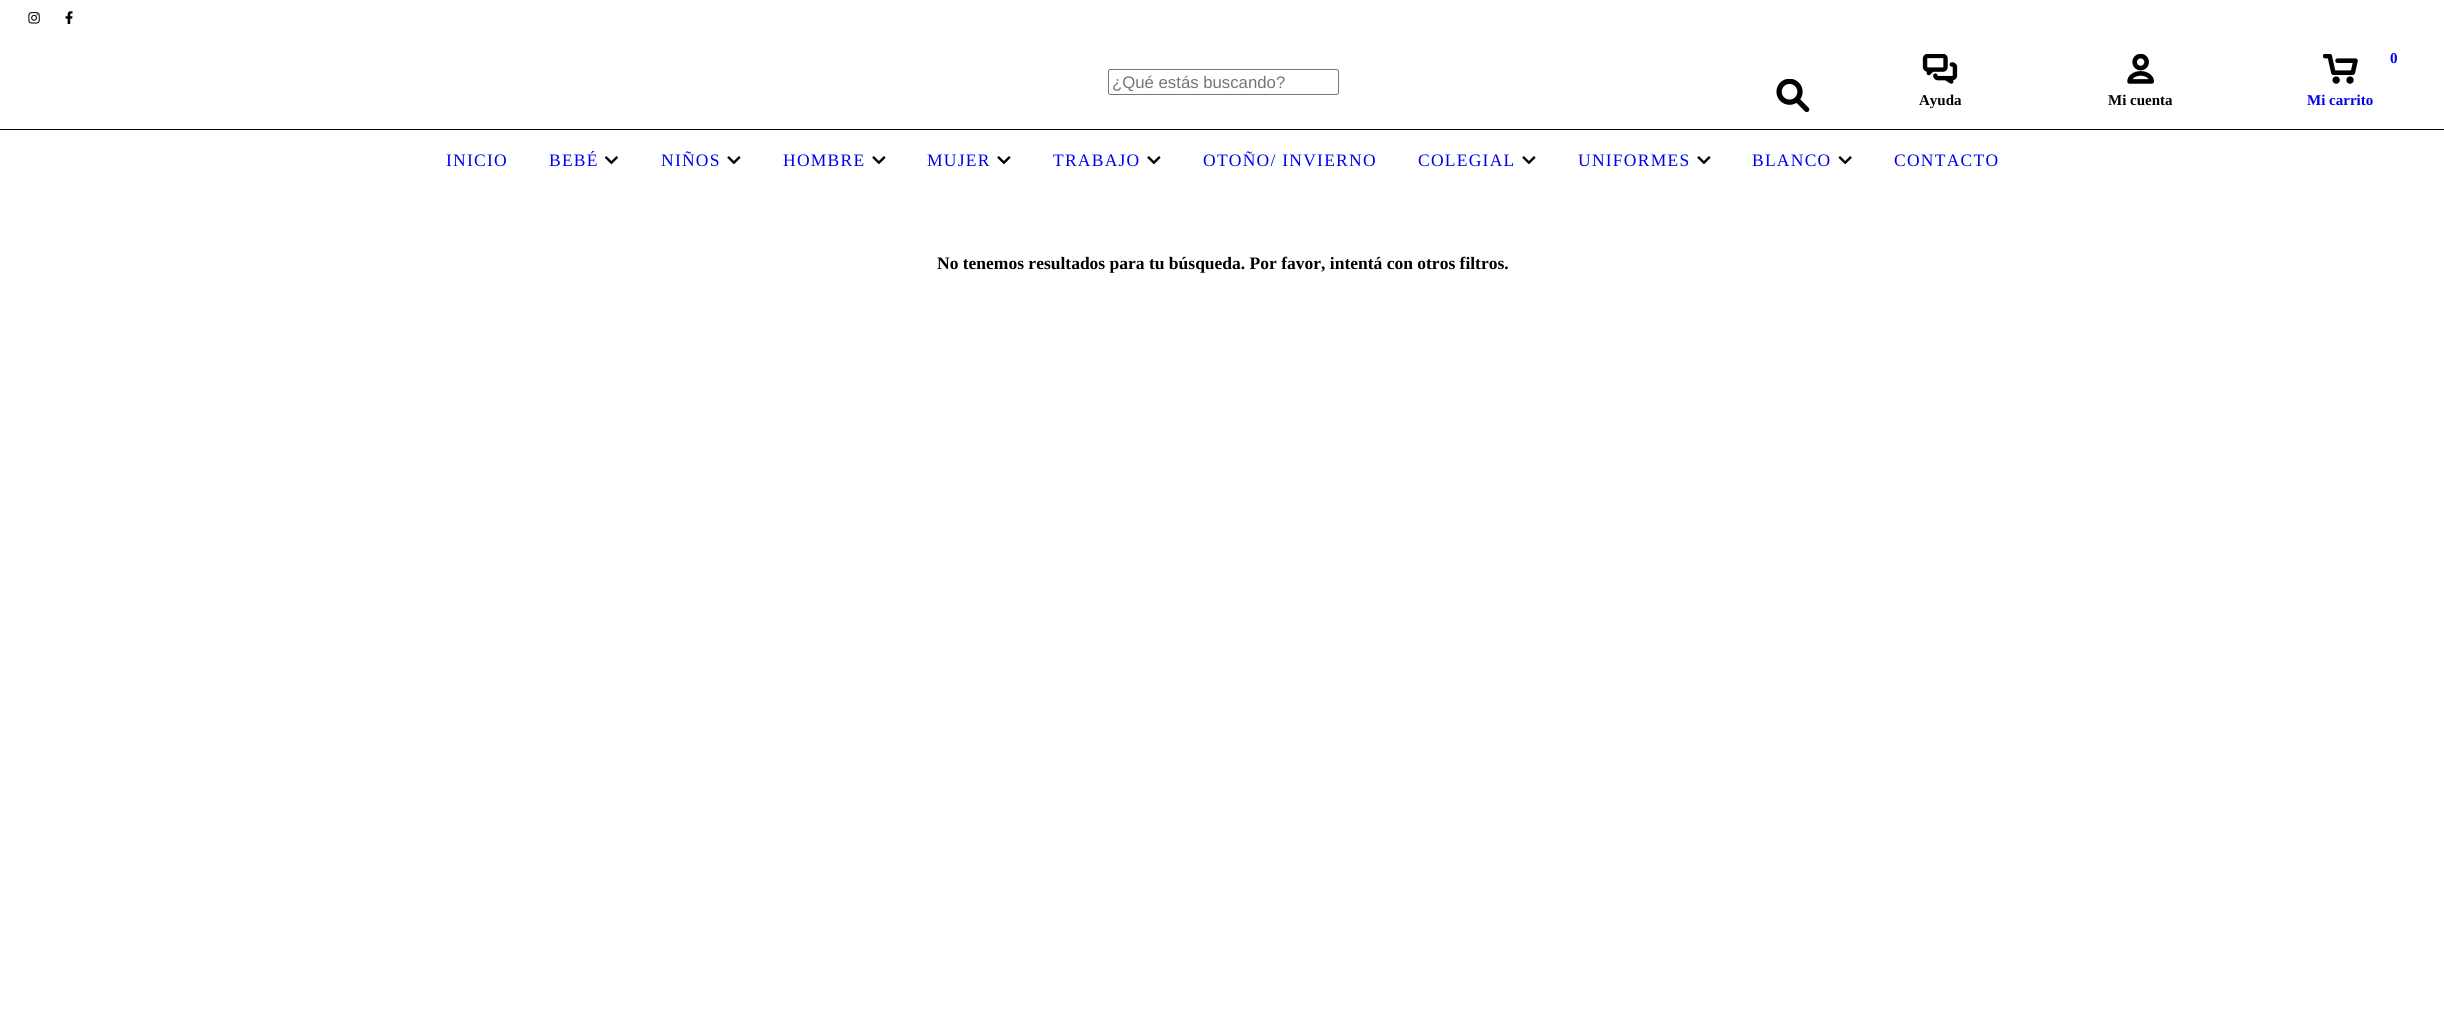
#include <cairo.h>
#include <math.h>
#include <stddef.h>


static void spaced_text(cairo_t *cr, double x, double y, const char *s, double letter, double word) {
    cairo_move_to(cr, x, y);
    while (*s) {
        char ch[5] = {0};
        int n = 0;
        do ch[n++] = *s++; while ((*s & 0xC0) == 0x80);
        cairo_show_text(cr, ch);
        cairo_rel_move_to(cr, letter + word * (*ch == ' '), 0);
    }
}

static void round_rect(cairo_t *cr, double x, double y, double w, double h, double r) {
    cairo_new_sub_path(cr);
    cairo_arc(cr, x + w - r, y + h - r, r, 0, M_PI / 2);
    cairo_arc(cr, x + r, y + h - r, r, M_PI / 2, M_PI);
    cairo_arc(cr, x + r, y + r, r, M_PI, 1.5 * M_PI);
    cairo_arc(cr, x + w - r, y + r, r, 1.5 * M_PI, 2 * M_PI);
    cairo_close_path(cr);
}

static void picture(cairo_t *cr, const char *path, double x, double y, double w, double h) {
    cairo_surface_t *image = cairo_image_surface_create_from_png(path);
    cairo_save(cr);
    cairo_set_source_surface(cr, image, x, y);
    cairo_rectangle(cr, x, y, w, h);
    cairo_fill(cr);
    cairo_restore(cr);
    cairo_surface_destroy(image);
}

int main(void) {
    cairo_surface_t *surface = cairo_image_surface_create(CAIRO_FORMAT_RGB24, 2444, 1021);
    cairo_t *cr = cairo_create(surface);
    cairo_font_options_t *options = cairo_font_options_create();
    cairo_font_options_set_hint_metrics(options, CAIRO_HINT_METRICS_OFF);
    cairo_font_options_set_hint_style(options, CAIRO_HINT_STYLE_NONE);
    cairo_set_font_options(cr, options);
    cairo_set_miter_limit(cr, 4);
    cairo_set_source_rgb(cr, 1, 1, 1);
    cairo_paint(cr);
    picture(cr, "img1.png", 28, 12, 12, 12);
    picture(cr, "img2.png", 65, 11, 8, 13);
    round_rect(cr, 1108.5, 69.5, 230, 25, 2);
    cairo_set_source_rgb(cr, 0.463, 0.463, 0.463);
    cairo_set_line_width(cr, 1);
    cairo_stroke(cr);
    cairo_select_font_face(cr, "Liberation Sans", CAIRO_FONT_SLANT_NORMAL, CAIRO_FONT_WEIGHT_NORMAL);
    cairo_set_font_size(cr, 16.75);
    cairo_set_source_rgb(cr, 0.459, 0.459, 0.459);
    cairo_move_to(cr, 1112, 88);
    cairo_show_text(cr, "¿Qué estás buscando?");
    picture(cr, "img3.png", 1776, 79, 34, 33);
    picture(cr, "img4.png", 1922, 54, 36, 30);
    cairo_select_font_face(cr, "Liberation Serif", CAIRO_FONT_SLANT_NORMAL, CAIRO_FONT_WEIGHT_BOLD);
    cairo_set_font_size(cr, 15);
    cairo_set_source_rgb(cr, 0, 0, 0);
    cairo_move_to(cr, 1919, 105);
    cairo_show_text(cr, "Ayuda");
    picture(cr, "img5.png", 2127, 54, 27, 30);
    cairo_move_to(cr, 2108, 105);
    cairo_show_text(cr, "Mi cuenta");
    picture(cr, "img6.png", 2323, 54, 35, 30);
    cairo_set_source_rgb(cr, 0, 0, 0.933);
    cairo_move_to(cr, 2390, 63);
    cairo_show_text(cr, "0");
    cairo_move_to(cr, 2307, 105);
    cairo_show_text(cr, "Mi carrito");
    cairo_set_source_rgb(cr, 0, 0, 0);
    cairo_rectangle(cr, 0, 129, 2444, 1);
    cairo_fill(cr);
    cairo_select_font_face(cr, "Liberation Serif", CAIRO_FONT_SLANT_NORMAL, CAIRO_FONT_WEIGHT_NORMAL);
    cairo_set_font_size(cr, 17.5);
    cairo_set_source_rgb(cr, 0, 0, 0.933);
    spaced_text(cr, 446, 166, "INICIO", 1.25, 0);
    spaced_text(cr, 549, 166, "BEBÉ", 1.25, 0);
    picture(cr, "img7.png", 604, 156, 14, 9);
    spaced_text(cr, 661, 166, "NIÑOS", 1.25, 0);
    picture(cr, "img8.png", 727, 156, 14, 9);
    spaced_text(cr, 783, 166, "HOMBRE", 1.25, 0);
    picture(cr, "img8.png", 872, 156, 14, 9);
    spaced_text(cr, 927, 166, "MUJER", 1.25, 0);
    picture(cr, "img8.png", 997, 156, 14, 9);
    spaced_text(cr, 1053, 166, "TRABAJO", 1.25, 0);
    picture(cr, "img8.png", 1147, 156, 14, 9);
    spaced_text(cr, 1203, 166, "OTOÑO/ INVIERNO", 1.25, 0);
    spaced_text(cr, 1418, 166, "COLEGIAL", 1.25, 0);
    picture(cr, "img8.png", 1522, 156, 14, 9);
    spaced_text(cr, 1578, 166, "UNIFORMES", 1.25, 0);
    picture(cr, "img8.png", 1697, 156, 14, 9);
    spaced_text(cr, 1752, 166, "BLANCO", 1.25, 0);
    picture(cr, "img9.png", 1838, 156, 14, 9);
    spaced_text(cr, 1894, 166, "CONTACTO", 1.25, 0);
    cairo_select_font_face(cr, "Liberation Serif", CAIRO_FONT_SLANT_NORMAL, CAIRO_FONT_WEIGHT_BOLD);
    cairo_set_source_rgb(cr, 0, 0, 0);
    cairo_move_to(cr, 937, 269);
    cairo_show_text(cr, "No tenemos resultados para tu búsqueda. Por favor, intentá con otros filtros.");
    cairo_surface_write_to_png(surface, "page.png");
    cairo_font_options_destroy(options);
    cairo_destroy(cr);
    cairo_surface_destroy(surface);
    return 0;
}
